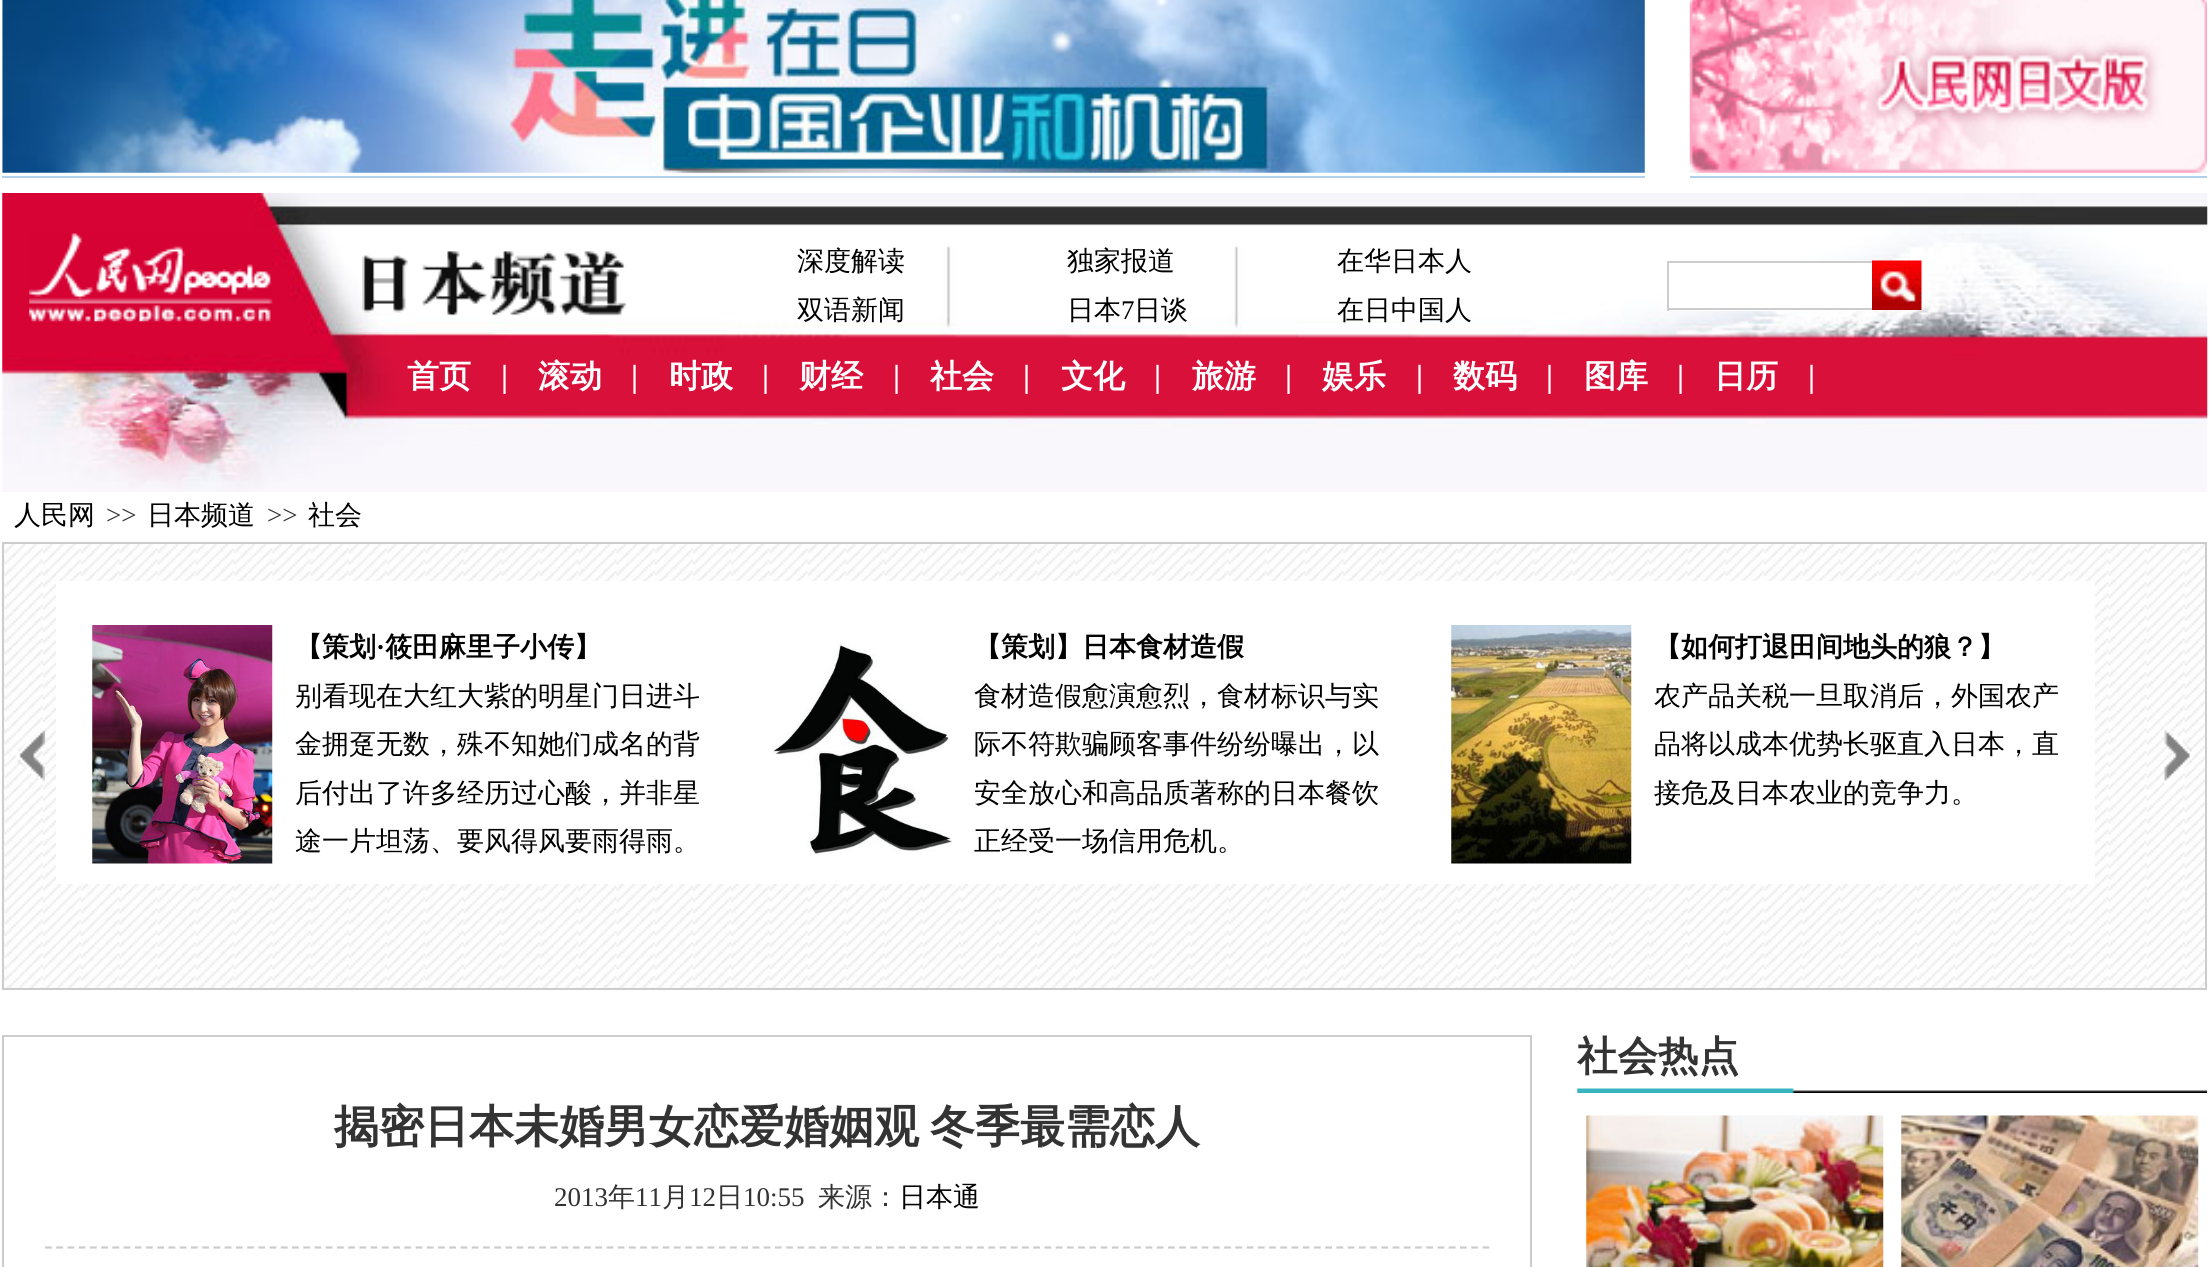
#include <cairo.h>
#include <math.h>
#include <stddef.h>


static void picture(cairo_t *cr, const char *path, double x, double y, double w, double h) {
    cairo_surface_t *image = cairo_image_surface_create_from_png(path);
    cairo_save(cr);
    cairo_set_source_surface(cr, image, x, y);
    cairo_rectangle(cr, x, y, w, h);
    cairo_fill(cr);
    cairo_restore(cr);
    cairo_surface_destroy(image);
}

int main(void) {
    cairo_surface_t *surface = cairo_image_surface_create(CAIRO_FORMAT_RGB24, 2209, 1267);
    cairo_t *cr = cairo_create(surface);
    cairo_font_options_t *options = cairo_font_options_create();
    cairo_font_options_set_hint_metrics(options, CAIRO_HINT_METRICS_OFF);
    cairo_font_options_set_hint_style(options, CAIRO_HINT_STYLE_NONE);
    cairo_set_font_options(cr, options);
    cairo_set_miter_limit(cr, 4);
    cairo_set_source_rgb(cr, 1, 1, 1);
    cairo_paint(cr);
    picture(cr, "img1.png", 2, 0, 1643, 173);
    cairo_set_source_rgb(cr, 0.686, 0.82, 0.918);
    cairo_rectangle(cr, 2, 176, 1643, 2);
    cairo_fill(cr);
    picture(cr, "img2.png", 1689, 0, 519, 173);
    cairo_rectangle(cr, 1690, 176, 517, 2);
    cairo_fill(cr);
    picture(cr, "img3.png", 2, 193, 2206, 299);
    picture(cr, "img4.png", 29, 233, 244, 89);
    picture(cr, "img5.png", 362, 251, 265, 65);
    cairo_select_font_face(cr, "WenQuanYi Zen Hei Medium", CAIRO_FONT_SLANT_NORMAL, CAIRO_FONT_WEIGHT_NORMAL);
    cairo_set_font_size(cr, 27);
    cairo_set_source_rgb(cr, 0, 0, 0);
    cairo_move_to(cr, 797, 270);
    cairo_show_text(cr, "深度解读");
    cairo_move_to(cr, 797, 319);
    cairo_show_text(cr, "双语新闻");
    cairo_move_to(cr, 1067, 270);
    cairo_show_text(cr, "独家报道");
    cairo_move_to(cr, 1067, 319);
    cairo_show_text(cr, "日本");
    cairo_select_font_face(cr, "Liberation Serif", CAIRO_FONT_SLANT_NORMAL, CAIRO_FONT_WEIGHT_NORMAL);
    cairo_move_to(cr, 1121, 319);
    cairo_show_text(cr, "7");
    cairo_select_font_face(cr, "WenQuanYi Zen Hei Medium", CAIRO_FONT_SLANT_NORMAL, CAIRO_FONT_WEIGHT_NORMAL);
    cairo_move_to(cr, 1134, 319);
    cairo_show_text(cr, "日谈");
    cairo_move_to(cr, 1337, 270);
    cairo_show_text(cr, "在华日本人");
    cairo_move_to(cr, 1337, 319);
    cairo_show_text(cr, "在日中国人");
    cairo_set_source_rgb(cr, 1, 1, 1);
    cairo_rectangle(cr, 1669, 263, 203, 48);
    cairo_fill(cr);
    cairo_set_source_rgb(cr, 0.8, 0.8, 0.8);
    cairo_rectangle(cr, 1667, 261, 205, 2);
    cairo_fill(cr);
    cairo_rectangle(cr, 1667, 308, 205, 2);
    cairo_fill(cr);
    cairo_rectangle(cr, 1667, 261, 2, 50);
    cairo_fill(cr);
    picture(cr, "img6.png", 1872, 260, 50, 50);
    cairo_select_font_face(cr, "WenQuanYi Zen Hei", CAIRO_FONT_SLANT_NORMAL, CAIRO_FONT_WEIGHT_BOLD);
    cairo_set_font_size(cr, 32);
    cairo_set_source_rgb(cr, 1, 1, 1);
    cairo_move_to(cr, 407, 387);
    cairo_show_text(cr, "首页");
    cairo_select_font_face(cr, "Liberation Serif", CAIRO_FONT_SLANT_NORMAL, CAIRO_FONT_WEIGHT_BOLD);
    cairo_move_to(cr, 501, 387);
    cairo_show_text(cr, "|");
    cairo_select_font_face(cr, "WenQuanYi Zen Hei", CAIRO_FONT_SLANT_NORMAL, CAIRO_FONT_WEIGHT_BOLD);
    cairo_move_to(cr, 538, 387);
    cairo_show_text(cr, "滚动");
    cairo_select_font_face(cr, "Liberation Serif", CAIRO_FONT_SLANT_NORMAL, CAIRO_FONT_WEIGHT_BOLD);
    cairo_move_to(cr, 631, 387);
    cairo_show_text(cr, "|");
    cairo_select_font_face(cr, "WenQuanYi Zen Hei", CAIRO_FONT_SLANT_NORMAL, CAIRO_FONT_WEIGHT_BOLD);
    cairo_move_to(cr, 669, 387);
    cairo_show_text(cr, "时政");
    cairo_select_font_face(cr, "Liberation Serif", CAIRO_FONT_SLANT_NORMAL, CAIRO_FONT_WEIGHT_BOLD);
    cairo_move_to(cr, 762, 387);
    cairo_show_text(cr, "|");
    cairo_select_font_face(cr, "WenQuanYi Zen Hei", CAIRO_FONT_SLANT_NORMAL, CAIRO_FONT_WEIGHT_BOLD);
    cairo_move_to(cr, 799, 387);
    cairo_show_text(cr, "财经");
    cairo_select_font_face(cr, "Liberation Serif", CAIRO_FONT_SLANT_NORMAL, CAIRO_FONT_WEIGHT_BOLD);
    cairo_move_to(cr, 893, 387);
    cairo_show_text(cr, "|");
    cairo_select_font_face(cr, "WenQuanYi Zen Hei", CAIRO_FONT_SLANT_NORMAL, CAIRO_FONT_WEIGHT_BOLD);
    cairo_move_to(cr, 930, 387);
    cairo_show_text(cr, "社会");
    cairo_select_font_face(cr, "Liberation Serif", CAIRO_FONT_SLANT_NORMAL, CAIRO_FONT_WEIGHT_BOLD);
    cairo_move_to(cr, 1023, 387);
    cairo_show_text(cr, "|");
    cairo_select_font_face(cr, "WenQuanYi Zen Hei", CAIRO_FONT_SLANT_NORMAL, CAIRO_FONT_WEIGHT_BOLD);
    cairo_move_to(cr, 1061, 387);
    cairo_show_text(cr, "文化");
    cairo_select_font_face(cr, "Liberation Serif", CAIRO_FONT_SLANT_NORMAL, CAIRO_FONT_WEIGHT_BOLD);
    cairo_move_to(cr, 1154, 387);
    cairo_show_text(cr, "|");
    cairo_select_font_face(cr, "WenQuanYi Zen Hei", CAIRO_FONT_SLANT_NORMAL, CAIRO_FONT_WEIGHT_BOLD);
    cairo_move_to(cr, 1192, 387);
    cairo_show_text(cr, "旅游");
    cairo_select_font_face(cr, "Liberation Serif", CAIRO_FONT_SLANT_NORMAL, CAIRO_FONT_WEIGHT_BOLD);
    cairo_move_to(cr, 1285, 387);
    cairo_show_text(cr, "|");
    cairo_select_font_face(cr, "WenQuanYi Zen Hei", CAIRO_FONT_SLANT_NORMAL, CAIRO_FONT_WEIGHT_BOLD);
    cairo_move_to(cr, 1322, 387);
    cairo_show_text(cr, "娱乐");
    cairo_select_font_face(cr, "Liberation Serif", CAIRO_FONT_SLANT_NORMAL, CAIRO_FONT_WEIGHT_BOLD);
    cairo_move_to(cr, 1416, 387);
    cairo_show_text(cr, "|");
    cairo_select_font_face(cr, "WenQuanYi Zen Hei", CAIRO_FONT_SLANT_NORMAL, CAIRO_FONT_WEIGHT_BOLD);
    cairo_move_to(cr, 1453, 387);
    cairo_show_text(cr, "数码");
    cairo_select_font_face(cr, "Liberation Serif", CAIRO_FONT_SLANT_NORMAL, CAIRO_FONT_WEIGHT_BOLD);
    cairo_move_to(cr, 1546, 387);
    cairo_show_text(cr, "|");
    cairo_select_font_face(cr, "WenQuanYi Zen Hei", CAIRO_FONT_SLANT_NORMAL, CAIRO_FONT_WEIGHT_BOLD);
    cairo_move_to(cr, 1584, 387);
    cairo_show_text(cr, "图库");
    cairo_select_font_face(cr, "Liberation Serif", CAIRO_FONT_SLANT_NORMAL, CAIRO_FONT_WEIGHT_BOLD);
    cairo_move_to(cr, 1677, 387);
    cairo_show_text(cr, "|");
    cairo_select_font_face(cr, "WenQuanYi Zen Hei", CAIRO_FONT_SLANT_NORMAL, CAIRO_FONT_WEIGHT_BOLD);
    cairo_move_to(cr, 1714, 387);
    cairo_show_text(cr, "日历");
    cairo_select_font_face(cr, "Liberation Serif", CAIRO_FONT_SLANT_NORMAL, CAIRO_FONT_WEIGHT_BOLD);
    cairo_move_to(cr, 1808, 387);
    cairo_show_text(cr, "|");
    cairo_select_font_face(cr, "WenQuanYi Zen Hei Medium", CAIRO_FONT_SLANT_NORMAL, CAIRO_FONT_WEIGHT_NORMAL);
    cairo_set_font_size(cr, 27);
    cairo_set_source_rgb(cr, 0, 0, 0);
    cairo_move_to(cr, 14, 524);
    cairo_show_text(cr, "人民网");
    cairo_select_font_face(cr, "Liberation Serif", CAIRO_FONT_SLANT_NORMAL, CAIRO_FONT_WEIGHT_NORMAL);
    cairo_set_source_rgb(cr, 0.2, 0.2, 0.2);
    cairo_move_to(cr, 106, 524);
    cairo_show_text(cr, ">>");
    cairo_select_font_face(cr, "WenQuanYi Zen Hei Medium", CAIRO_FONT_SLANT_NORMAL, CAIRO_FONT_WEIGHT_NORMAL);
    cairo_set_source_rgb(cr, 0, 0, 0);
    cairo_move_to(cr, 147, 524);
    cairo_show_text(cr, "日本频道");
    cairo_select_font_face(cr, "Liberation Serif", CAIRO_FONT_SLANT_NORMAL, CAIRO_FONT_WEIGHT_NORMAL);
    cairo_set_source_rgb(cr, 0.2, 0.2, 0.2);
    cairo_move_to(cr, 267, 524);
    cairo_show_text(cr, ">>");
    cairo_select_font_face(cr, "WenQuanYi Zen Hei Medium", CAIRO_FONT_SLANT_NORMAL, CAIRO_FONT_WEIGHT_NORMAL);
    cairo_set_source_rgb(cr, 0, 0, 0);
    cairo_move_to(cr, 308, 524);
    cairo_show_text(cr, "社会");
    picture(cr, "img7.png", 2, 541, 2205, 447);
    cairo_rectangle(cr, 3, 543, 2203, 446);
    cairo_set_source_rgb(cr, 0.8, 0.8, 0.8);
    cairo_stroke(cr);
    picture(cr, "img8.png", 15, 728, 30, 54);
    cairo_set_source_rgb(cr, 1, 1, 1);
    cairo_rectangle(cr, 56, 581, 2039, 303);
    cairo_fill(cr);
    picture(cr, "img9.png", 92, 625, 181, 239);
    cairo_select_font_face(cr, "WenQuanYi Zen Hei", CAIRO_FONT_SLANT_NORMAL, CAIRO_FONT_WEIGHT_BOLD);
    cairo_set_source_rgb(cr, 0, 0, 0);
    cairo_move_to(cr, 295, 656);
    cairo_show_text(cr, "【策划");
    cairo_select_font_face(cr, "Liberation Serif", CAIRO_FONT_SLANT_NORMAL, CAIRO_FONT_WEIGHT_BOLD);
    cairo_move_to(cr, 376, 656);
    cairo_show_text(cr, "·");
    cairo_select_font_face(cr, "WenQuanYi Zen Hei", CAIRO_FONT_SLANT_NORMAL, CAIRO_FONT_WEIGHT_BOLD);
    cairo_move_to(cr, 385, 656);
    cairo_show_text(cr, "筱田麻里子小传】");
    cairo_select_font_face(cr, "WenQuanYi Zen Hei Medium", CAIRO_FONT_SLANT_NORMAL, CAIRO_FONT_WEIGHT_NORMAL);
    cairo_move_to(cr, 295, 705);
    cairo_show_text(cr, "别看现在大红大紫的明星门日进斗");
    cairo_move_to(cr, 295, 753);
    cairo_show_text(cr, "金拥趸无数，殊不知她们成名的背");
    cairo_move_to(cr, 295, 802);
    cairo_show_text(cr, "后付出了许多经历过心酸，并非星");
    cairo_move_to(cr, 295, 850);
    cairo_show_text(cr, "途一片坦荡、要风得风要雨得雨。");
    picture(cr, "img10.png", 772, 643, 180, 213);
    cairo_select_font_face(cr, "WenQuanYi Zen Hei", CAIRO_FONT_SLANT_NORMAL, CAIRO_FONT_WEIGHT_BOLD);
    cairo_move_to(cr, 974, 656);
    cairo_show_text(cr, "【策划】日本食材造假");
    cairo_select_font_face(cr, "WenQuanYi Zen Hei Medium", CAIRO_FONT_SLANT_NORMAL, CAIRO_FONT_WEIGHT_NORMAL);
    cairo_move_to(cr, 974, 705);
    cairo_show_text(cr, "食材造假愈演愈烈，食材标识与实");
    cairo_move_to(cr, 974, 753);
    cairo_show_text(cr, "际不符欺骗顾客事件纷纷曝出，以");
    cairo_move_to(cr, 974, 802);
    cairo_show_text(cr, "安全放心和高品质著称的日本餐饮");
    cairo_move_to(cr, 974, 850);
    cairo_show_text(cr, "正经受一场信用危机。");
    picture(cr, "img11.png", 1451, 625, 181, 239);
    cairo_select_font_face(cr, "WenQuanYi Zen Hei", CAIRO_FONT_SLANT_NORMAL, CAIRO_FONT_WEIGHT_BOLD);
    cairo_move_to(cr, 1654, 656);
    cairo_show_text(cr, "【如何打退田间地头的狼？】");
    cairo_select_font_face(cr, "WenQuanYi Zen Hei Medium", CAIRO_FONT_SLANT_NORMAL, CAIRO_FONT_WEIGHT_NORMAL);
    cairo_move_to(cr, 1654, 705);
    cairo_show_text(cr, "农产品关税一旦取消后，外国农产");
    cairo_move_to(cr, 1654, 753);
    cairo_show_text(cr, "品将以成本优势长驱直入日本，直");
    cairo_move_to(cr, 1654, 802);
    cairo_show_text(cr, "接危及日本农业的竞争力。");
    picture(cr, "img12.png", 2164, 726, 30, 58);
    picture(cr, "img13.png", 1577, 1088, 631, 5);
    cairo_select_font_face(cr, "WenQuanYi Zen Hei", CAIRO_FONT_SLANT_NORMAL, CAIRO_FONT_WEIGHT_BOLD);
    cairo_set_font_size(cr, 40.5);
    cairo_set_source_rgb(cr, 0.2, 0.2, 0.2);
    cairo_move_to(cr, 1577, 1070);
    cairo_show_text(cr, "社会热点");
    picture(cr, "img14.png", 1586, 1115, 298, 152);
    picture(cr, "img15.png", 1901, 1115, 298, 152);
    cairo_rectangle(cr, 3, 1036, 1528, 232);
    cairo_set_source_rgb(cr, 0.8, 0.8, 0.8);
    cairo_stroke(cr);
    cairo_set_font_size(cr, 45);
    cairo_set_source_rgb(cr, 0.2, 0.2, 0.2);
    cairo_move_to(cr, 334, 1142);
    cairo_show_text(cr, "揭密日本未婚男女恋爱婚姻观");
    cairo_move_to(cr, 930, 1142);
    cairo_show_text(cr, "冬季最需恋人");
    cairo_select_font_face(cr, "Liberation Serif", CAIRO_FONT_SLANT_NORMAL, CAIRO_FONT_WEIGHT_NORMAL);
    cairo_set_font_size(cr, 27);
    cairo_move_to(cr, 554, 1206);
    cairo_show_text(cr, "2013");
    cairo_select_font_face(cr, "WenQuanYi Zen Hei Medium", CAIRO_FONT_SLANT_NORMAL, CAIRO_FONT_WEIGHT_NORMAL);
    cairo_move_to(cr, 608, 1206);
    cairo_show_text(cr, "年");
    cairo_select_font_face(cr, "Liberation Serif", CAIRO_FONT_SLANT_NORMAL, CAIRO_FONT_WEIGHT_NORMAL);
    cairo_move_to(cr, 635, 1206);
    cairo_show_text(cr, "11");
    cairo_select_font_face(cr, "WenQuanYi Zen Hei Medium", CAIRO_FONT_SLANT_NORMAL, CAIRO_FONT_WEIGHT_NORMAL);
    cairo_move_to(cr, 662, 1206);
    cairo_show_text(cr, "月");
    cairo_select_font_face(cr, "Liberation Serif", CAIRO_FONT_SLANT_NORMAL, CAIRO_FONT_WEIGHT_NORMAL);
    cairo_move_to(cr, 689, 1206);
    cairo_show_text(cr, "12");
    cairo_select_font_face(cr, "WenQuanYi Zen Hei Medium", CAIRO_FONT_SLANT_NORMAL, CAIRO_FONT_WEIGHT_NORMAL);
    cairo_move_to(cr, 716, 1206);
    cairo_show_text(cr, "日");
    cairo_select_font_face(cr, "Liberation Serif", CAIRO_FONT_SLANT_NORMAL, CAIRO_FONT_WEIGHT_NORMAL);
    cairo_move_to(cr, 743, 1206);
    cairo_show_text(cr, "10:55");
    cairo_select_font_face(cr, "WenQuanYi Zen Hei Medium", CAIRO_FONT_SLANT_NORMAL, CAIRO_FONT_WEIGHT_NORMAL);
    cairo_move_to(cr, 818, 1206);
    cairo_show_text(cr, "来源：");
    cairo_set_source_rgb(cr, 0, 0, 0);
    cairo_move_to(cr, 899, 1206);
    cairo_show_text(cr, "日本通");
    cairo_new_path(cr);
    cairo_move_to(cr, 45, 1247.5);
    cairo_line_to(cr, 1489.5, 1247.5);
    cairo_set_source_rgb(cr, 0.8, 0.8, 0.8);
    cairo_set_line_width(cr, 2.2);
    cairo_set_dash(cr, (double[]){6.75, 4.48}, 2, 0);
    cairo_stroke(cr);
    cairo_surface_write_to_png(surface, "page.png");
    cairo_font_options_destroy(options);
    cairo_destroy(cr);
    cairo_surface_destroy(surface);
    return 0;
}
